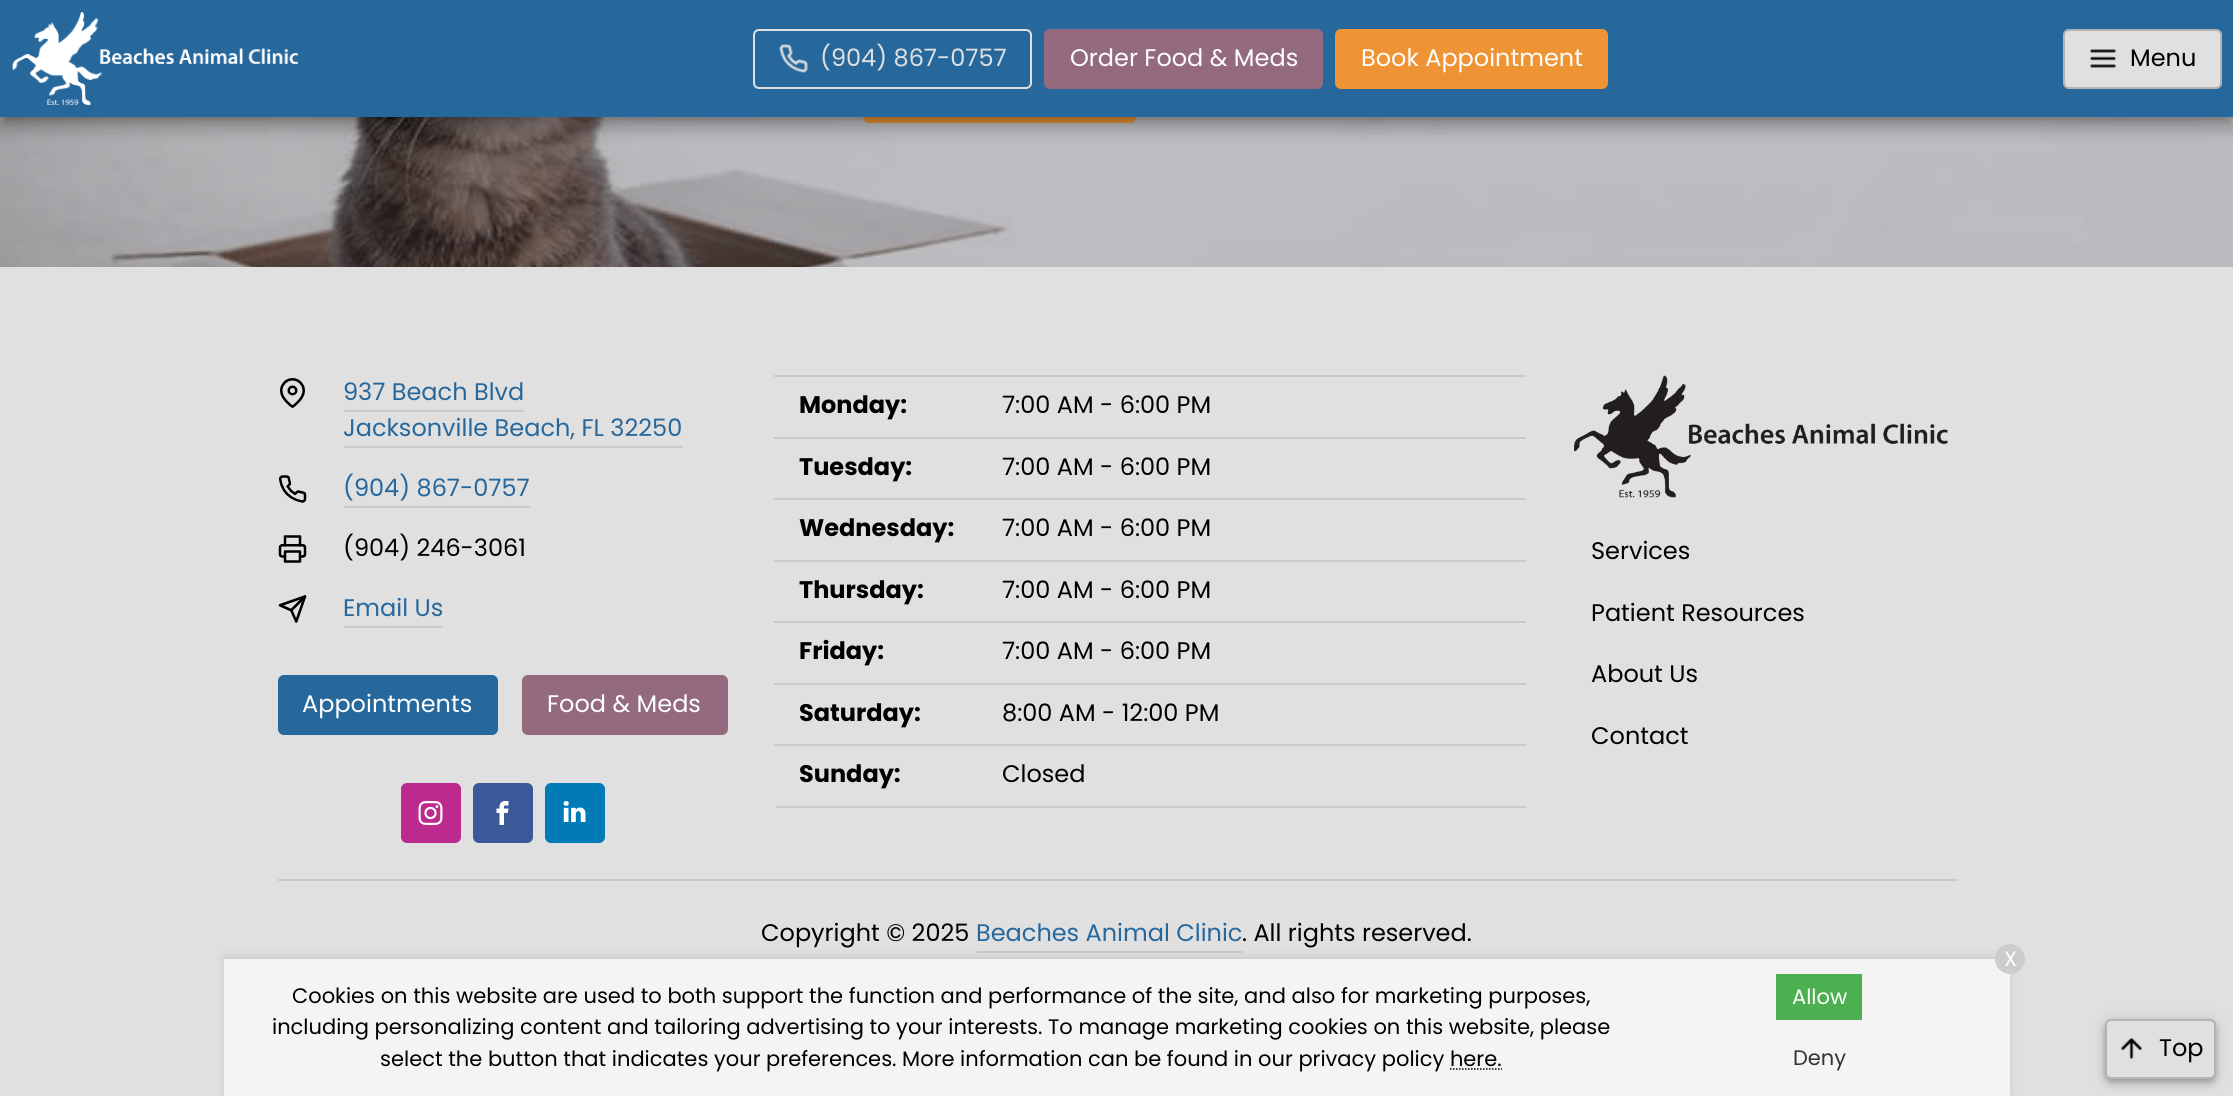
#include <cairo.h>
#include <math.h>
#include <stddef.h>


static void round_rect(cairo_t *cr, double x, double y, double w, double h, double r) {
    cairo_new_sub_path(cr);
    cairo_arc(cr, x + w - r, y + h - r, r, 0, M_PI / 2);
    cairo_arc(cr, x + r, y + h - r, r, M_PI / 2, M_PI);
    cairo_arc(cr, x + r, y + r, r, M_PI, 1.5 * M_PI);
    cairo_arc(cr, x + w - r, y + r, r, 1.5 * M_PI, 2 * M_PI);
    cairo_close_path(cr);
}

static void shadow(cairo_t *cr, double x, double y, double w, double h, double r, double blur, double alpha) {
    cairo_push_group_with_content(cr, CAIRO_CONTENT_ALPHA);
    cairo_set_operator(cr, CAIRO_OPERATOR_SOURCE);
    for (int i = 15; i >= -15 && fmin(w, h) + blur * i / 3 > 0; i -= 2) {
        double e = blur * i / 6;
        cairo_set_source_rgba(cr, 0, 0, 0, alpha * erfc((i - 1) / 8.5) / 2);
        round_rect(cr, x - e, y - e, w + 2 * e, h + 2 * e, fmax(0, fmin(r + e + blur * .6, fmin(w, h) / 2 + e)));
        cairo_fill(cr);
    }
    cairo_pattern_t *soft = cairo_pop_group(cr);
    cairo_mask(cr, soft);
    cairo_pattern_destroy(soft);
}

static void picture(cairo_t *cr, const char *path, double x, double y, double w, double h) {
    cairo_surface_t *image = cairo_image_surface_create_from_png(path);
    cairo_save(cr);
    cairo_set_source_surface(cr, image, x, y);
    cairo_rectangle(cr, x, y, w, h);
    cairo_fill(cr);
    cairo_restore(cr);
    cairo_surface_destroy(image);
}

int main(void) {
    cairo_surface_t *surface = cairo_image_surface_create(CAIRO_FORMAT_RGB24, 2233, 1096);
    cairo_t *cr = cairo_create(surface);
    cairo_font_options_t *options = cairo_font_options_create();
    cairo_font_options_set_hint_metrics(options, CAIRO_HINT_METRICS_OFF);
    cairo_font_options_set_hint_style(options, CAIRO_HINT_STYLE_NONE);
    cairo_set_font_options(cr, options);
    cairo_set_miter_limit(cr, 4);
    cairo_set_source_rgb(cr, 0.878, 0.878, 0.878);
    cairo_paint(cr);
    picture(cr, "img4.png", 0, 117, 2233, 150);
    cairo_set_source_rgb(cr, 0.937, 0.58, 0.204);
    round_rect(cr, 863, 63, 273, 60, 6);
    cairo_fill(cr);
    cairo_set_source_rgb(cr, 0, 0, 0);
    shadow(cr, -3, 2, 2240, 123, 0, 10.5, 0.12);
    shadow(cr, -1, 11, 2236, 120, 0, 7.5, 0.14);
    shadow(cr, 5, 12, 2224, 108, 0, 4, 0.2);
    cairo_set_source_rgb(cr, 0.149, 0.404, 0.612);
    cairo_rectangle(cr, 0, 0, 2233, 117);
    cairo_fill(cr);
    picture(cr, "img1.png", 12, 12, 286, 93);
    round_rect(cr, 754, 30, 277, 58, 5);
    cairo_set_source_rgb(cr, 0.878, 0.878, 0.878);
    cairo_stroke(cr);
    picture(cr, "img2.png", 779, 44, 29, 29);
    cairo_select_font_face(cr, "Poppins", CAIRO_FONT_SLANT_NORMAL, CAIRO_FONT_WEIGHT_NORMAL);
    cairo_set_font_size(cr, 24);
    cairo_move_to(cr, 820, 66);
    cairo_show_text(cr, "(904) 867-0757");
    cairo_set_source_rgb(cr, 0.58, 0.42, 0.494);
    round_rect(cr, 1044, 29, 279, 60, 6);
    cairo_fill(cr);
    cairo_set_source_rgb(cr, 1, 1, 1);
    cairo_move_to(cr, 1070, 66);
    cairo_show_text(cr, "Order Food & Meds");
    cairo_set_source_rgb(cr, 0.937, 0.58, 0.204);
    round_rect(cr, 1335, 29, 273, 60, 6);
    cairo_fill(cr);
    cairo_set_source_rgb(cr, 1, 1, 1);
    cairo_move_to(cr, 1361, 66);
    cairo_show_text(cr, "Book Appointment");
    cairo_set_source_rgb(cr, 0.878, 0.878, 0.878);
    round_rect(cr, 2063, 29, 159, 60, 6);
    cairo_fill(cr);
    round_rect(cr, 2064, 30, 157, 58, 5);
    cairo_set_source_rgba(cr, 0, 0, 0, 0.2);
    cairo_stroke(cr);
    picture(cr, "img3.png", 2090, 49, 26, 19);
    cairo_set_source_rgb(cr, 0, 0, 0);
    cairo_move_to(cr, 2130, 66);
    cairo_show_text(cr, "Menu");
    picture(cr, "img5.png", 280, 378, 25, 30);
    cairo_set_source_rgb(cr, 0.149, 0.404, 0.612);
    cairo_move_to(cr, 343, 400);
    cairo_show_text(cr, "937 Beach Blvd");
    cairo_move_to(cr, 343, 436);
    cairo_show_text(cr, "Jacksonville Beach, FL 32250");
    cairo_set_source_rgb(cr, 0.792, 0.792, 0.792);
    cairo_rectangle(cr, 344, 410, 180, 2);
    cairo_fill(cr);
    cairo_rectangle(cr, 344, 446, 339, 2);
    cairo_fill(cr);
    picture(cr, "img6.png", 278, 475, 29, 28);
    cairo_set_source_rgb(cr, 0.149, 0.404, 0.612);
    cairo_move_to(cr, 343, 496);
    cairo_show_text(cr, "(904) 867-0757");
    cairo_set_source_rgb(cr, 0.792, 0.792, 0.792);
    cairo_rectangle(cr, 344, 506, 186, 2);
    cairo_fill(cr);
    picture(cr, "img7.png", 278, 535, 29, 28);
    cairo_set_source_rgb(cr, 0, 0, 0);
    cairo_move_to(cr, 343, 556);
    cairo_show_text(cr, "(904) 246-3061");
    picture(cr, "img8.png", 278, 595, 29, 28);
    cairo_set_source_rgb(cr, 0.149, 0.404, 0.612);
    cairo_move_to(cr, 343, 616);
    cairo_show_text(cr, "Email Us");
    cairo_set_source_rgb(cr, 0.792, 0.792, 0.792);
    cairo_rectangle(cr, 344, 626, 99, 2);
    cairo_fill(cr);
    cairo_set_source_rgb(cr, 0.149, 0.404, 0.612);
    round_rect(cr, 278, 675, 220, 60, 6);
    cairo_fill(cr);
    cairo_set_source_rgb(cr, 1, 1, 1);
    cairo_move_to(cr, 302, 712);
    cairo_show_text(cr, "Appointments");
    cairo_set_source_rgb(cr, 0.58, 0.42, 0.494);
    round_rect(cr, 522, 675, 206, 60, 6);
    cairo_fill(cr);
    cairo_set_source_rgb(cr, 1, 1, 1);
    cairo_move_to(cr, 547, 712);
    cairo_show_text(cr, "Food & Meds");
    cairo_set_source_rgb(cr, 0.737, 0.165, 0.553);
    round_rect(cr, 401, 783, 60, 60, 6);
    cairo_fill(cr);
    picture(cr, "img9.png", 418, 801, 25, 24);
    cairo_set_source_rgb(cr, 0.231, 0.349, 0.596);
    round_rect(cr, 473, 783, 60, 60, 6);
    cairo_fill(cr);
    picture(cr, "img10.png", 496, 801, 13, 24);
    cairo_set_source_rgb(cr, 0, 0.482, 0.714);
    round_rect(cr, 545, 783, 60, 60, 6);
    cairo_fill(cr);
    picture(cr, "img11.png", 563, 801, 23, 21);
    cairo_set_source_rgb(cr, 0.792, 0.792, 0.792);
    cairo_rectangle(cr, 776, 806, 750, 2);
    cairo_fill(cr);
    cairo_rectangle(cr, 774, 375, 752, 2);
    cairo_fill(cr);
    cairo_select_font_face(cr, "Poppins", CAIRO_FONT_SLANT_NORMAL, CAIRO_FONT_WEIGHT_BOLD);
    cairo_set_source_rgb(cr, 0, 0, 0);
    cairo_move_to(cr, 799, 413);
    cairo_show_text(cr, "Monday:");
    cairo_select_font_face(cr, "Poppins", CAIRO_FONT_SLANT_NORMAL, CAIRO_FONT_WEIGHT_NORMAL);
    cairo_move_to(cr, 1002, 413);
    cairo_show_text(cr, "7:00 AM - 6:00 PM");
    cairo_set_source_rgb(cr, 0.792, 0.792, 0.792);
    cairo_rectangle(cr, 774, 437, 752, 2);
    cairo_fill(cr);
    cairo_select_font_face(cr, "Poppins", CAIRO_FONT_SLANT_NORMAL, CAIRO_FONT_WEIGHT_BOLD);
    cairo_set_source_rgb(cr, 0, 0, 0);
    cairo_move_to(cr, 799, 475);
    cairo_show_text(cr, "Tuesday:");
    cairo_select_font_face(cr, "Poppins", CAIRO_FONT_SLANT_NORMAL, CAIRO_FONT_WEIGHT_NORMAL);
    cairo_move_to(cr, 1002, 475);
    cairo_show_text(cr, "7:00 AM - 6:00 PM");
    cairo_set_source_rgb(cr, 0.792, 0.792, 0.792);
    cairo_rectangle(cr, 774, 498, 752, 2);
    cairo_fill(cr);
    cairo_select_font_face(cr, "Poppins", CAIRO_FONT_SLANT_NORMAL, CAIRO_FONT_WEIGHT_BOLD);
    cairo_set_source_rgb(cr, 0, 0, 0);
    cairo_move_to(cr, 799, 536);
    cairo_show_text(cr, "Wednesday:");
    cairo_select_font_face(cr, "Poppins", CAIRO_FONT_SLANT_NORMAL, CAIRO_FONT_WEIGHT_NORMAL);
    cairo_move_to(cr, 1002, 536);
    cairo_show_text(cr, "7:00 AM - 6:00 PM");
    cairo_set_source_rgb(cr, 0.792, 0.792, 0.792);
    cairo_rectangle(cr, 774, 560, 752, 2);
    cairo_fill(cr);
    cairo_select_font_face(cr, "Poppins", CAIRO_FONT_SLANT_NORMAL, CAIRO_FONT_WEIGHT_BOLD);
    cairo_set_source_rgb(cr, 0, 0, 0);
    cairo_move_to(cr, 799, 598);
    cairo_show_text(cr, "Thursday:");
    cairo_select_font_face(cr, "Poppins", CAIRO_FONT_SLANT_NORMAL, CAIRO_FONT_WEIGHT_NORMAL);
    cairo_move_to(cr, 1002, 598);
    cairo_show_text(cr, "7:00 AM - 6:00 PM");
    cairo_set_source_rgb(cr, 0.792, 0.792, 0.792);
    cairo_rectangle(cr, 774, 621, 752, 2);
    cairo_fill(cr);
    cairo_select_font_face(cr, "Poppins", CAIRO_FONT_SLANT_NORMAL, CAIRO_FONT_WEIGHT_BOLD);
    cairo_set_source_rgb(cr, 0, 0, 0);
    cairo_move_to(cr, 799, 659);
    cairo_show_text(cr, "Friday:");
    cairo_select_font_face(cr, "Poppins", CAIRO_FONT_SLANT_NORMAL, CAIRO_FONT_WEIGHT_NORMAL);
    cairo_move_to(cr, 1002, 659);
    cairo_show_text(cr, "7:00 AM - 6:00 PM");
    cairo_set_source_rgb(cr, 0.792, 0.792, 0.792);
    cairo_rectangle(cr, 774, 683, 752, 2);
    cairo_fill(cr);
    cairo_select_font_face(cr, "Poppins", CAIRO_FONT_SLANT_NORMAL, CAIRO_FONT_WEIGHT_BOLD);
    cairo_set_source_rgb(cr, 0, 0, 0);
    cairo_move_to(cr, 799, 721);
    cairo_show_text(cr, "Saturday:");
    cairo_select_font_face(cr, "Poppins", CAIRO_FONT_SLANT_NORMAL, CAIRO_FONT_WEIGHT_NORMAL);
    cairo_move_to(cr, 1002, 721);
    cairo_show_text(cr, "8:00 AM - 12:00 PM");
    cairo_set_source_rgb(cr, 0.792, 0.792, 0.792);
    cairo_rectangle(cr, 774, 744, 752, 2);
    cairo_fill(cr);
    cairo_select_font_face(cr, "Poppins", CAIRO_FONT_SLANT_NORMAL, CAIRO_FONT_WEIGHT_BOLD);
    cairo_set_source_rgb(cr, 0, 0, 0);
    cairo_move_to(cr, 799, 782);
    cairo_show_text(cr, "Sunday:");
    cairo_select_font_face(cr, "Poppins", CAIRO_FONT_SLANT_NORMAL, CAIRO_FONT_WEIGHT_NORMAL);
    cairo_move_to(cr, 1002, 782);
    cairo_show_text(cr, "Closed");
    picture(cr, "img12.png", 1574, 375, 374, 123);
    cairo_move_to(cr, 1591, 559);
    cairo_show_text(cr, "Services");
    cairo_move_to(cr, 1591, 621);
    cairo_show_text(cr, "Patient Resources");
    cairo_move_to(cr, 1591, 682);
    cairo_show_text(cr, "About Us");
    cairo_move_to(cr, 1591, 744);
    cairo_show_text(cr, "Contact");
    cairo_set_source_rgb(cr, 0.792, 0.792, 0.792);
    cairo_rectangle(cr, 278, 879, 1680, 2);
    cairo_fill(cr);
    cairo_set_source_rgb(cr, 0, 0, 0);
    cairo_move_to(cr, 761, 941);
    cairo_show_text(cr, "Copyright © 2025");
    cairo_set_source_rgb(cr, 0.149, 0.404, 0.612);
    cairo_move_to(cr, 976, 941);
    cairo_show_text(cr, "Beaches Animal Clinic");
    cairo_set_source_rgb(cr, 0.792, 0.792, 0.792);
    cairo_rectangle(cr, 977, 951, 265, 2);
    cairo_fill(cr);
    cairo_set_source_rgb(cr, 0, 0, 0);
    cairo_move_to(cr, 1242, 941);
    cairo_show_text(cr, ". All rights reserved.");
    cairo_set_source_rgb(cr, 0, 0, 0);
    shadow(cr, 224, 956, 1786, 138, 0, 4, 0.1);
    cairo_set_source_rgb(cr, 0.957, 0.957, 0.957);
    cairo_rectangle(cr, 224, 959, 1786, 137);
    cairo_fill(cr);
    cairo_set_source_rgb(cr, 0.8, 0.8, 0.8);
    cairo_arc(cr, 2010, 959, 15, 0, 2 * M_PI);
    cairo_fill(cr);
    cairo_set_font_size(cr, 21);
    cairo_set_source_rgb(cr, 1, 1, 1);
    cairo_move_to(cr, 2004, 966);
    cairo_show_text(cr, "X");
    cairo_set_source_rgb(cr, 0, 0, 0);
    cairo_move_to(cr, 292, 1003);
    cairo_show_text(cr, "Cookies on this website are used to both support the function and performance of the site, and also for marketing purposes,");
    cairo_move_to(cr, 272, 1034);
    cairo_show_text(cr, "including personalizing content and tailoring advertising to your interests. To manage marketing cookies on this website, please");
    cairo_move_to(cr, 380, 1066);
    cairo_show_text(cr, "select the button that indicates your preferences. More information can be found in our privacy policy here.");
    cairo_new_path(cr);
    cairo_move_to(cr, 1450, 1069);
    cairo_line_to(cr, 1502, 1069);
    cairo_set_line_width(cr, 1.5);
    cairo_set_dash(cr, (double[]){1.5, 1.5}, 2, 0);
    cairo_stroke(cr);
    cairo_set_source_rgb(cr, 0.298, 0.686, 0.314);
    cairo_rectangle(cr, 1776, 974, 86, 46);
    cairo_fill(cr);
    cairo_set_source_rgb(cr, 1, 1, 1);
    cairo_move_to(cr, 1792, 1004);
    cairo_show_text(cr, "Allow");
    cairo_set_source_rgb(cr, 0.2, 0.2, 0.2);
    cairo_move_to(cr, 1793, 1065);
    cairo_show_text(cr, "Deny");
    cairo_set_source_rgb(cr, 0, 0, 0);
    shadow(cr, 2105, 1020, 111, 60, 6, 7.5, 0.12);
    shadow(cr, 2105, 1025, 111, 60, 6, 4, 0.14);
    shadow(cr, 2106, 1023, 108, 57, 5, 3, 0.2);
    cairo_set_source_rgb(cr, 0.878, 0.878, 0.878);
    round_rect(cr, 2105, 1019, 111, 60, 6);
    cairo_fill(cr);
    round_rect(cr, 2106, 1020, 109, 58, 5);
    cairo_set_source_rgba(cr, 0, 0, 0, 0.2);
    cairo_set_line_width(cr, 2);
    cairo_set_dash(cr, NULL, 0, 0);
    cairo_stroke(cr);
    picture(cr, "img13.png", 2121, 1038, 21, 21);
    cairo_set_font_size(cr, 24);
    cairo_set_source_rgb(cr, 0, 0, 0);
    cairo_move_to(cr, 2159, 1056);
    cairo_show_text(cr, "Top");
    cairo_surface_write_to_png(surface, "page.png");
    cairo_font_options_destroy(options);
    cairo_destroy(cr);
    cairo_surface_destroy(surface);
    return 0;
}
